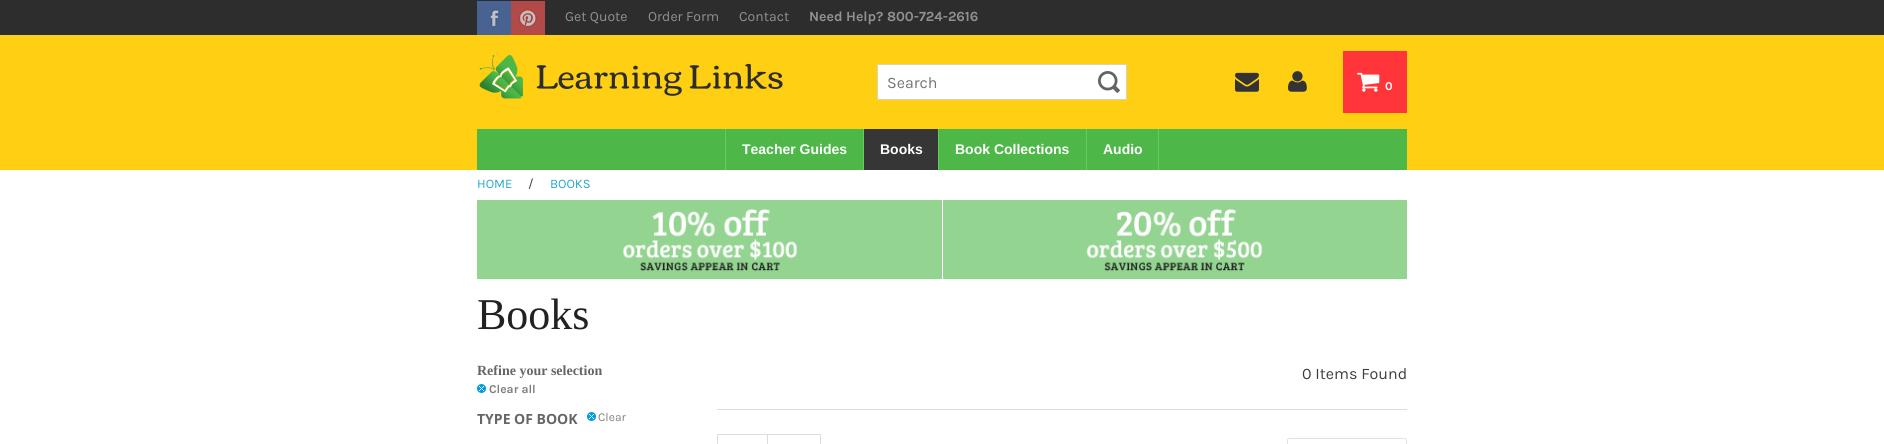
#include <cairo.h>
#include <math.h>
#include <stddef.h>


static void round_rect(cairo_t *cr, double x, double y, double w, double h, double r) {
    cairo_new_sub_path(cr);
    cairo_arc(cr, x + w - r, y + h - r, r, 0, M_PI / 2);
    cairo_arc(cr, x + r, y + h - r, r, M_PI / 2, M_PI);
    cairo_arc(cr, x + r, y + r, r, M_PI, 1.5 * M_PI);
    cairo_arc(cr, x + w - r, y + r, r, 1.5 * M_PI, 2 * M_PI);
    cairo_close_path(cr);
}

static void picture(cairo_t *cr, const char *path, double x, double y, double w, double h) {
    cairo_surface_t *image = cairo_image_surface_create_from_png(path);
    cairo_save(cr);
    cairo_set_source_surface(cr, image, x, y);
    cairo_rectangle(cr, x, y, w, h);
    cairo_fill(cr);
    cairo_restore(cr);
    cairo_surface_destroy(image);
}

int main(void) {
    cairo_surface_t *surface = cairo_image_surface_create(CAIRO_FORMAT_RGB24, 1884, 444);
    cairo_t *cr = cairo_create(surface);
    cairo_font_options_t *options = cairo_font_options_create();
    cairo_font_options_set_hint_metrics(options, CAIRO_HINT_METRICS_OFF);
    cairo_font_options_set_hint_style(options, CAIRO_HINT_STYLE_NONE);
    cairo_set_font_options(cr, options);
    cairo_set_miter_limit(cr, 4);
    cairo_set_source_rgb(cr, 1, 1, 1);
    cairo_paint(cr);
    cairo_set_source_rgb(cr, 0.176, 0.176, 0.176);
    cairo_rectangle(cr, 0, 0, 1884, 35);
    cairo_fill(cr);
    picture(cr, "img1.png", 477, 1, 34, 34);
    picture(cr, "img2.png", 511, 1, 34, 34);
    cairo_select_font_face(cr, "Karla", CAIRO_FONT_SLANT_NORMAL, CAIRO_FONT_WEIGHT_NORMAL);
    cairo_set_font_size(cr, 14);
    cairo_set_source_rgb(cr, 0.569, 0.569, 0.569);
    cairo_move_to(cr, 565, 21);
    cairo_show_text(cr, "Get Quote");
    cairo_move_to(cr, 648, 21);
    cairo_show_text(cr, "Order Form");
    cairo_move_to(cr, 739, 21);
    cairo_show_text(cr, "Contact");
    cairo_select_font_face(cr, "Karla", CAIRO_FONT_SLANT_NORMAL, CAIRO_FONT_WEIGHT_BOLD);
    cairo_move_to(cr, 809, 21);
    cairo_show_text(cr, "Need Help? 800-724-2616");
    cairo_set_source_rgb(cr, 1, 0.812, 0.082);
    cairo_rectangle(cr, 0, 35, 1884, 135);
    cairo_fill(cr);
    picture(cr, "img3.png", 479, 55, 304, 44);
    cairo_set_source_rgb(cr, 1, 1, 1);
    cairo_rectangle(cr, 877.5, 64.5, 249, 35);
    cairo_fill_preserve(cr);
    cairo_set_source_rgb(cr, 0.863, 0.827, 0.714);
    cairo_set_line_width(cr, 1);
    cairo_stroke(cr);
    cairo_select_font_face(cr, "Karla", CAIRO_FONT_SLANT_NORMAL, CAIRO_FONT_WEIGHT_NORMAL);
    cairo_set_font_size(cr, 16);
    cairo_set_source_rgb(cr, 0.459, 0.459, 0.459);
    cairo_move_to(cr, 887, 88);
    cairo_show_text(cr, "Search");
    picture(cr, "img4.png", 1098, 71, 22, 22);
    picture(cr, "img5.png", 1235, 72, 24, 20);
    picture(cr, "img6.png", 1288, 71, 19, 21);
    cairo_set_source_rgb(cr, 1, 0.208, 0.224);
    cairo_rectangle(cr, 1343, 51, 64, 62);
    cairo_fill(cr);
    picture(cr, "img7.png", 1357, 72, 23, 20);
    cairo_select_font_face(cr, "Karla", CAIRO_FONT_SLANT_NORMAL, CAIRO_FONT_WEIGHT_BOLD);
    cairo_set_font_size(cr, 12);
    cairo_set_source_rgb(cr, 1, 1, 1);
    cairo_move_to(cr, 1385, 90);
    cairo_show_text(cr, "0");
    cairo_set_source_rgb(cr, 0.302, 0.722, 0.282);
    cairo_rectangle(cr, 477, 129, 930, 41);
    cairo_fill(cr);
    cairo_set_source_rgb(cr, 0.384, 0.8, 0.365);
    cairo_rectangle(cr, 863, 129, 1, 41);
    cairo_fill(cr);
    cairo_rectangle(cr, 725, 129, 1, 41);
    cairo_fill(cr);
    cairo_select_font_face(cr, "Liberation Sans", CAIRO_FONT_SLANT_NORMAL, CAIRO_FONT_WEIGHT_BOLD);
    cairo_set_font_size(cr, 14);
    cairo_set_source_rgb(cr, 1, 1, 1);
    cairo_move_to(cr, 742, 154);
    cairo_show_text(cr, "Teacher Guides");
    cairo_set_source_rgb(cr, 0.384, 0.8, 0.365);
    cairo_rectangle(cr, 938, 129, 1, 41);
    cairo_fill(cr);
    cairo_set_source_rgb(cr, 0.212, 0.212, 0.212);
    cairo_rectangle(cr, 864, 129, 74, 41);
    cairo_fill(cr);
    cairo_set_source_rgb(cr, 1, 1, 1);
    cairo_move_to(cr, 880, 154);
    cairo_show_text(cr, "Books");
    cairo_set_source_rgb(cr, 0.384, 0.8, 0.365);
    cairo_rectangle(cr, 1086, 129, 1, 41);
    cairo_fill(cr);
    cairo_set_source_rgb(cr, 1, 1, 1);
    cairo_move_to(cr, 955, 154);
    cairo_show_text(cr, "Book Collections");
    cairo_set_source_rgb(cr, 0.384, 0.8, 0.365);
    cairo_rectangle(cr, 1158, 129, 1, 41);
    cairo_fill(cr);
    cairo_set_source_rgb(cr, 1, 1, 1);
    cairo_move_to(cr, 1103, 154);
    cairo_show_text(cr, "Audio");
    cairo_select_font_face(cr, "Karla", CAIRO_FONT_SLANT_NORMAL, CAIRO_FONT_WEIGHT_NORMAL);
    cairo_set_font_size(cr, 13);
    cairo_set_source_rgb(cr, 0.169, 0.651, 0.796);
    cairo_move_to(cr, 477, 188);
    cairo_show_text(cr, "HOME");
    cairo_set_source_rgb(cr, 0.239, 0.239, 0.239);
    cairo_move_to(cr, 528, 188);
    cairo_show_text(cr, "/");
    cairo_set_source_rgb(cr, 0.169, 0.651, 0.796);
    cairo_move_to(cr, 550, 188);
    cairo_show_text(cr, "BOOKS");
    picture(cr, "img8.png", 477, 200, 930, 79);
    cairo_select_font_face(cr, "Liberation Serif", CAIRO_FONT_SLANT_NORMAL, CAIRO_FONT_WEIGHT_NORMAL);
    cairo_set_font_size(cr, 44);
    cairo_set_source_rgb(cr, 0.133, 0.133, 0.133);
    cairo_move_to(cr, 477, 329);
    cairo_show_text(cr, "Books");
    cairo_select_font_face(cr, "Liberation Serif", CAIRO_FONT_SLANT_NORMAL, CAIRO_FONT_WEIGHT_BOLD);
    cairo_set_font_size(cr, 14);
    cairo_set_source_rgb(cr, 0.4, 0.4, 0.4);
    cairo_move_to(cr, 477, 375);
    cairo_show_text(cr, "Refine your selection");
    picture(cr, "img9.png", 477, 384, 9, 9);
    cairo_select_font_face(cr, "Karla", CAIRO_FONT_SLANT_NORMAL, CAIRO_FONT_WEIGHT_BOLD);
    cairo_set_font_size(cr, 12);
    cairo_set_source_rgb(cr, 0.502, 0.502, 0.502);
    cairo_move_to(cr, 489, 393);
    cairo_show_text(cr, "Clear all");
    cairo_select_font_face(cr, "Open Sans", CAIRO_FONT_SLANT_NORMAL, CAIRO_FONT_WEIGHT_BOLD);
    cairo_set_font_size(cr, 14);
    cairo_set_source_rgb(cr, 0.4, 0.4, 0.4);
    cairo_move_to(cr, 477, 424);
    cairo_show_text(cr, "TYPE OF BOOK");
    picture(cr, "img9.png", 587, 412, 9, 9);
    cairo_select_font_face(cr, "Karla", CAIRO_FONT_SLANT_NORMAL, CAIRO_FONT_WEIGHT_NORMAL);
    cairo_set_font_size(cr, 12);
    cairo_set_source_rgb(cr, 0.502, 0.502, 0.502);
    cairo_move_to(cr, 598, 421);
    cairo_show_text(cr, "Clear");
    cairo_set_font_size(cr, 16);
    cairo_set_source_rgb(cr, 0.239, 0.239, 0.239);
    cairo_move_to(cr, 1302, 379);
    cairo_show_text(cr, "0 Items Found");
    cairo_set_source_rgb(cr, 0.867, 0.867, 0.867);
    cairo_rectangle(cr, 717, 409, 690, 1);
    cairo_fill(cr);
    cairo_rectangle(cr, 717, 434, 50, 1);
    cairo_fill(cr);
    cairo_rectangle(cr, 717, 434, 1, 10);
    cairo_fill(cr);
    cairo_rectangle(cr, 767.5, 434.5, 53, 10);
    cairo_stroke(cr);
    round_rect(cr, 1287.5, 438.5, 119, 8, 1.5);
    cairo_set_source_rgb(cr, 0.886, 0.886, 0.886);
    cairo_stroke(cr);
    cairo_surface_write_to_png(surface, "page.png");
    cairo_font_options_destroy(options);
    cairo_destroy(cr);
    cairo_surface_destroy(surface);
    return 0;
}
